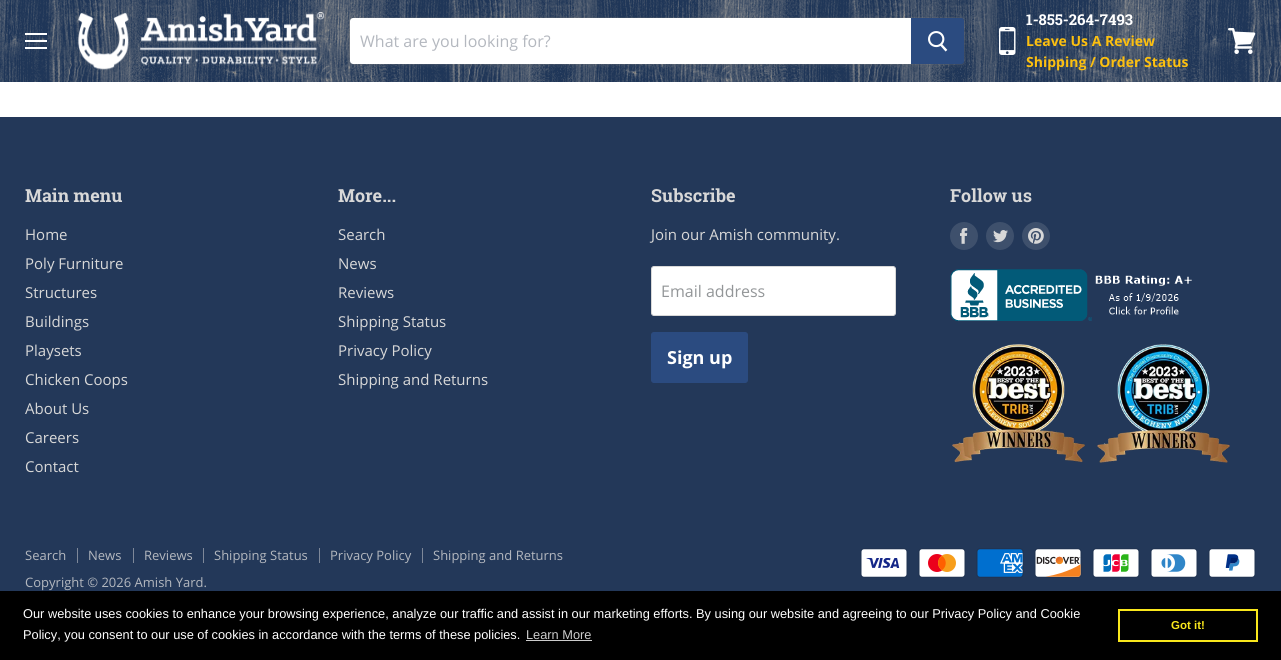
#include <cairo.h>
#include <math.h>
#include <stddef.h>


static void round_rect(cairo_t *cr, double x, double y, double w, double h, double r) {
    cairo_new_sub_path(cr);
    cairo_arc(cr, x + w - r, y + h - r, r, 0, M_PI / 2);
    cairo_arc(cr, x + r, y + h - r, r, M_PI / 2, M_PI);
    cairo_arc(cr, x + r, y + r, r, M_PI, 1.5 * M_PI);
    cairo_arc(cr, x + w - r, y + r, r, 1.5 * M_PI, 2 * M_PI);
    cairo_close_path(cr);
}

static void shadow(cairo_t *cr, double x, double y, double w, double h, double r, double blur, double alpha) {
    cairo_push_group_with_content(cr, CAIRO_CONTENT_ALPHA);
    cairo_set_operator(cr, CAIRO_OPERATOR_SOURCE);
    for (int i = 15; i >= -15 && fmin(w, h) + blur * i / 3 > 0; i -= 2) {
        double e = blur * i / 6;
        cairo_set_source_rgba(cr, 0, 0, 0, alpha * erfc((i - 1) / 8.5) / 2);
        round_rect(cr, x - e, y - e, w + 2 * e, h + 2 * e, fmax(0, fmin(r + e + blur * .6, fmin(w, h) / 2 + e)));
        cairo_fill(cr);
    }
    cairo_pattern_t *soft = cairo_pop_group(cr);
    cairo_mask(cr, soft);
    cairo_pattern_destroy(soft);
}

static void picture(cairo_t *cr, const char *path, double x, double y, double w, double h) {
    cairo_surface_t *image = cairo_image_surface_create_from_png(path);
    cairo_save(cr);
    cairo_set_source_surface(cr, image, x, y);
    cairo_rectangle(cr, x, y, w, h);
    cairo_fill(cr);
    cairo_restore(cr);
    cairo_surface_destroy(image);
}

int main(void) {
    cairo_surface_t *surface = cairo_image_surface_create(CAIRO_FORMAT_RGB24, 1281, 660);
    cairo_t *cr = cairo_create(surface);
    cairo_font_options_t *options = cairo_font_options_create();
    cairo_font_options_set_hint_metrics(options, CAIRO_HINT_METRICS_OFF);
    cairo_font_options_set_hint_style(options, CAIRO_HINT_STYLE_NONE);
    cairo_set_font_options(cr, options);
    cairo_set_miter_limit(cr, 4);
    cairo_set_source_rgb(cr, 1, 1, 1);
    cairo_paint(cr);
    cairo_set_source_rgb(cr, 0.122, 0.212, 0.345);
    cairo_rectangle(cr, 0, 0, 1281, 82);
    cairo_fill(cr);
    picture(cr, "img1.png", 0, 0, 1281, 82);
    cairo_set_source_rgb(cr, 1, 1, 1);
    cairo_rectangle(cr, 25, 33, 22, 2);
    cairo_fill(cr);
    cairo_rectangle(cr, 25, 40, 22, 2);
    cairo_fill(cr);
    cairo_rectangle(cr, 25, 47, 22, 2);
    cairo_fill(cr);
    picture(cr, "img2.png", 78, 12, 247, 58);
    cairo_set_source_rgb(cr, 0.498, 0.498, 0.498);
    shadow(cr, 349, 19, 616, 48, 4, 1.5, 0.11);
    round_rect(cr, 349.5, 17.5, 615, 47, 3.5);
    cairo_set_source_rgba(cr, 0.498, 0.498, 0.498, 0.2);
    cairo_set_line_width(cr, 1);
    cairo_stroke(cr);
    cairo_set_source_rgb(cr, 1, 1, 1);
    cairo_new_path(cr);
    cairo_move_to(cr, 353, 18);
    cairo_line_to(cr, 911, 18);
    cairo_line_to(cr, 911, 64);
    cairo_line_to(cr, 353, 64);
    cairo_curve_to(cr, 351.5, 64, 350, 62.5, 350, 61);
    cairo_line_to(cr, 350, 21);
    cairo_curve_to(cr, 350, 19.5, 351.5, 18, 353, 18);
    cairo_close_path(cr);
    cairo_fill(cr);
    cairo_select_font_face(cr, "Open Sans", CAIRO_FONT_SLANT_NORMAL, CAIRO_FONT_WEIGHT_NORMAL);
    cairo_set_font_size(cr, 16);
    cairo_set_source_rgb(cr, 0.706, 0.722, 0.749);
    cairo_move_to(cr, 360, 47);
    cairo_show_text(cr, "What are you looking for?");
    cairo_set_source_rgb(cr, 0.169, 0.294, 0.502);
    cairo_new_path(cr);
    cairo_move_to(cr, 911.5, 18.5);
    cairo_line_to(cr, 961, 18.5);
    cairo_curve_to(cr, 962.5, 18.5, 963.5, 19.5, 963.5, 21);
    cairo_line_to(cr, 963.5, 61);
    cairo_curve_to(cr, 963.5, 62.5, 962.5, 63.5, 961, 63.5);
    cairo_line_to(cr, 911.5, 63.5);
    cairo_close_path(cr);
    cairo_fill_preserve(cr);
    cairo_stroke(cr);
    picture(cr, "img3.png", 928, 31, 20, 21);
    picture(cr, "img4.png", 999, 27, 17, 28);
    cairo_select_font_face(cr, "Roboto Slab", CAIRO_FONT_SLANT_NORMAL, CAIRO_FONT_WEIGHT_BOLD);
    cairo_set_font_size(cr, 15);
    cairo_set_source_rgb(cr, 1, 1, 1);
    cairo_move_to(cr, 1026, 25);
    cairo_show_text(cr, "1-855-264-7493");
    cairo_select_font_face(cr, "Open Sans", CAIRO_FONT_SLANT_NORMAL, CAIRO_FONT_WEIGHT_BOLD);
    cairo_set_font_size(cr, 14);
    cairo_set_source_rgb(cr, 0.992, 0.753, 0.059);
    cairo_move_to(cr, 1026, 46);
    cairo_show_text(cr, "Leave Us A Review");
    cairo_move_to(cr, 1026, 67);
    cairo_show_text(cr, "Shipping / Order Status");
    picture(cr, "img5.png", 1228, 28, 28, 26);
    cairo_set_source_rgb(cr, 0.137, 0.22, 0.349);
    cairo_rectangle(cr, 0, 117, 1281, 474);
    cairo_fill(cr);
    cairo_select_font_face(cr, "Roboto Slab", CAIRO_FONT_SLANT_NORMAL, CAIRO_FONT_WEIGHT_BOLD);
    cairo_set_font_size(cr, 18);
    cairo_set_source_rgb(cr, 0.847, 0.847, 0.847);
    cairo_move_to(cr, 25, 202);
    cairo_show_text(cr, "Main menu");
    cairo_select_font_face(cr, "Open Sans", CAIRO_FONT_SLANT_NORMAL, CAIRO_FONT_WEIGHT_NORMAL);
    cairo_set_font_size(cr, 15);
    cairo_move_to(cr, 25, 240);
    cairo_show_text(cr, "Home");
    cairo_move_to(cr, 25, 269);
    cairo_show_text(cr, "Poly Furniture");
    cairo_move_to(cr, 25, 298);
    cairo_show_text(cr, "Structures");
    cairo_move_to(cr, 25, 327);
    cairo_show_text(cr, "Buildings");
    cairo_move_to(cr, 25, 356);
    cairo_show_text(cr, "Playsets");
    cairo_move_to(cr, 25, 385);
    cairo_show_text(cr, "Chicken Coops");
    cairo_move_to(cr, 25, 414);
    cairo_show_text(cr, "About Us");
    cairo_move_to(cr, 25, 443);
    cairo_show_text(cr, "Careers");
    cairo_move_to(cr, 25, 472);
    cairo_show_text(cr, "Contact");
    cairo_select_font_face(cr, "Roboto Slab", CAIRO_FONT_SLANT_NORMAL, CAIRO_FONT_WEIGHT_BOLD);
    cairo_set_font_size(cr, 18);
    cairo_move_to(cr, 338, 202);
    cairo_show_text(cr, "More...");
    cairo_select_font_face(cr, "Open Sans", CAIRO_FONT_SLANT_NORMAL, CAIRO_FONT_WEIGHT_NORMAL);
    cairo_set_font_size(cr, 15);
    cairo_move_to(cr, 338, 240);
    cairo_show_text(cr, "Search");
    cairo_move_to(cr, 338, 269);
    cairo_show_text(cr, "News");
    cairo_move_to(cr, 338, 298);
    cairo_show_text(cr, "Reviews");
    cairo_move_to(cr, 338, 327);
    cairo_show_text(cr, "Shipping Status");
    cairo_move_to(cr, 338, 356);
    cairo_show_text(cr, "Privacy Policy");
    cairo_move_to(cr, 338, 385);
    cairo_show_text(cr, "Shipping and Returns");
    cairo_select_font_face(cr, "Roboto Slab", CAIRO_FONT_SLANT_NORMAL, CAIRO_FONT_WEIGHT_BOLD);
    cairo_set_font_size(cr, 18);
    cairo_move_to(cr, 651, 202);
    cairo_show_text(cr, "Subscribe");
    cairo_select_font_face(cr, "Open Sans", CAIRO_FONT_SLANT_NORMAL, CAIRO_FONT_WEIGHT_NORMAL);
    cairo_set_font_size(cr, 15);
    cairo_move_to(cr, 651, 240);
    cairo_show_text(cr, "Join our Amish community.");
    cairo_set_source_rgb(cr, 1, 1, 1);
    round_rect(cr, 651.5, 266.5, 244, 49, 2.5);
    cairo_fill_preserve(cr);
    cairo_set_source_rgb(cr, 0.847, 0.847, 0.847);
    cairo_stroke(cr);
    cairo_set_font_size(cr, 16);
    cairo_set_source_rgb(cr, 0.576, 0.588, 0.596);
    cairo_move_to(cr, 661, 297);
    cairo_show_text(cr, "Email address");
    cairo_set_source_rgb(cr, 0.169, 0.294, 0.502);
    round_rect(cr, 651.5, 332.5, 96, 50, 2.5);
    cairo_fill_preserve(cr);
    cairo_stroke(cr);
    cairo_select_font_face(cr, "Open Sans", CAIRO_FONT_SLANT_NORMAL, CAIRO_FONT_WEIGHT_BOLD);
    cairo_set_font_size(cr, 18);
    cairo_set_source_rgb(cr, 1, 1, 1);
    cairo_move_to(cr, 667, 364);
    cairo_show_text(cr, "Sign up");
    cairo_select_font_face(cr, "Roboto Slab", CAIRO_FONT_SLANT_NORMAL, CAIRO_FONT_WEIGHT_BOLD);
    cairo_set_source_rgb(cr, 0.847, 0.847, 0.847);
    cairo_move_to(cr, 950, 202);
    cairo_show_text(cr, "Follow us");
    cairo_set_source_rgb(cr, 0.243, 0.314, 0.424);
    cairo_new_path(cr);
    cairo_arc(cr, 964, 236, 14, 0, 2 * M_PI);
    cairo_fill(cr);
    picture(cr, "img6.png", 960, 228, 8, 16);
    cairo_arc(cr, 1000, 236, 14, 0, 2 * M_PI);
    cairo_fill(cr);
    picture(cr, "img7.png", 993, 230, 15, 13);
    cairo_arc(cr, 1036, 236, 14, 0, 2 * M_PI);
    cairo_fill(cr);
    picture(cr, "img8.png", 1028, 228, 16, 16);
    picture(cr, "img9.png", 950, 269, 242, 52);
    picture(cr, "img10.png", 952, 344, 133, 119);
    picture(cr, "img11.png", 1097, 344, 133, 119);
    cairo_set_source_rgb(cr, 0.494, 0.533, 0.6);
    cairo_rectangle(cr, 77, 548, 1, 15);
    cairo_fill(cr);
    cairo_select_font_face(cr, "Open Sans", CAIRO_FONT_SLANT_NORMAL, CAIRO_FONT_WEIGHT_NORMAL);
    cairo_set_font_size(cr, 13);
    cairo_set_source_rgb(cr, 0.706, 0.722, 0.749);
    cairo_move_to(cr, 25, 560);
    cairo_show_text(cr, "Search");
    cairo_set_source_rgb(cr, 0.494, 0.533, 0.6);
    cairo_rectangle(cr, 133, 548, 1, 15);
    cairo_fill(cr);
    cairo_set_source_rgb(cr, 0.706, 0.722, 0.749);
    cairo_move_to(cr, 88, 560);
    cairo_show_text(cr, "News");
    cairo_set_source_rgb(cr, 0.494, 0.533, 0.6);
    cairo_rectangle(cr, 203, 548, 1, 15);
    cairo_fill(cr);
    cairo_set_source_rgb(cr, 0.706, 0.722, 0.749);
    cairo_move_to(cr, 144, 560);
    cairo_show_text(cr, "Reviews");
    cairo_set_source_rgb(cr, 0.494, 0.533, 0.6);
    cairo_rectangle(cr, 319, 548, 1, 15);
    cairo_fill(cr);
    cairo_set_source_rgb(cr, 0.706, 0.722, 0.749);
    cairo_move_to(cr, 214, 560);
    cairo_show_text(cr, "Shipping Status");
    cairo_set_source_rgb(cr, 0.494, 0.533, 0.6);
    cairo_rectangle(cr, 422, 548, 1, 15);
    cairo_fill(cr);
    cairo_set_source_rgb(cr, 0.706, 0.722, 0.749);
    cairo_move_to(cr, 330, 560);
    cairo_show_text(cr, "Privacy Policy");
    cairo_move_to(cr, 433, 560);
    cairo_show_text(cr, "Shipping and Returns");
    cairo_move_to(cr, 25, 587);
    cairo_show_text(cr, "Copyright © 2026 Amish Yard.");
    picture(cr, "img12.png", 860, 548, 48, 30);
    picture(cr, "img13.png", 918, 548, 48, 30);
    picture(cr, "img14.png", 976, 548, 48, 30);
    picture(cr, "img15.png", 1034, 548, 48, 30);
    picture(cr, "img16.png", 1092, 548, 48, 30);
    picture(cr, "img17.png", 1150, 548, 48, 30);
    picture(cr, "img18.png", 1208, 548, 48, 30);
    cairo_set_source_rgb(cr, 0, 0, 0);
    cairo_rectangle(cr, 0, 591, 1281, 69);
    cairo_fill(cr);
    cairo_select_font_face(cr, "Liberation Sans", CAIRO_FONT_SLANT_NORMAL, CAIRO_FONT_WEIGHT_NORMAL);
    cairo_set_font_size(cr, 12.8);
    cairo_set_source_rgb(cr, 1, 1, 1);
    cairo_move_to(cr, 23, 618);
    cairo_show_text(cr, "Our website uses cookies to enhance your browsing experience, analyze our traffic and assist in our marketing efforts. By using our website and agreeing to our Privacy Policy and Cookie");
    cairo_move_to(cr, 23, 639);
    cairo_show_text(cr, "Policy, you consent to our use of cookies in accordance with the terms of these policies.");
    cairo_set_source_rgb(cr, 0.8, 0.8, 0.8);
    cairo_move_to(cr, 526, 639);
    cairo_show_text(cr, "Learn More");
    cairo_rectangle(cr, 526, 640, 66, 1);
    cairo_fill(cr);
    cairo_rectangle(cr, 1119, 610, 138, 31);
    cairo_set_source_rgb(cr, 0.973, 0.906, 0.11);
    cairo_set_line_width(cr, 2);
    cairo_stroke(cr);
    cairo_select_font_face(cr, "Liberation Sans", CAIRO_FONT_SLANT_NORMAL, CAIRO_FONT_WEIGHT_BOLD);
    cairo_set_font_size(cr, 11.5);
    cairo_move_to(cr, 1171, 629);
    cairo_show_text(cr, "Got it!");
    cairo_surface_write_to_png(surface, "page.png");
    cairo_font_options_destroy(options);
    cairo_destroy(cr);
    cairo_surface_destroy(surface);
    return 0;
}
